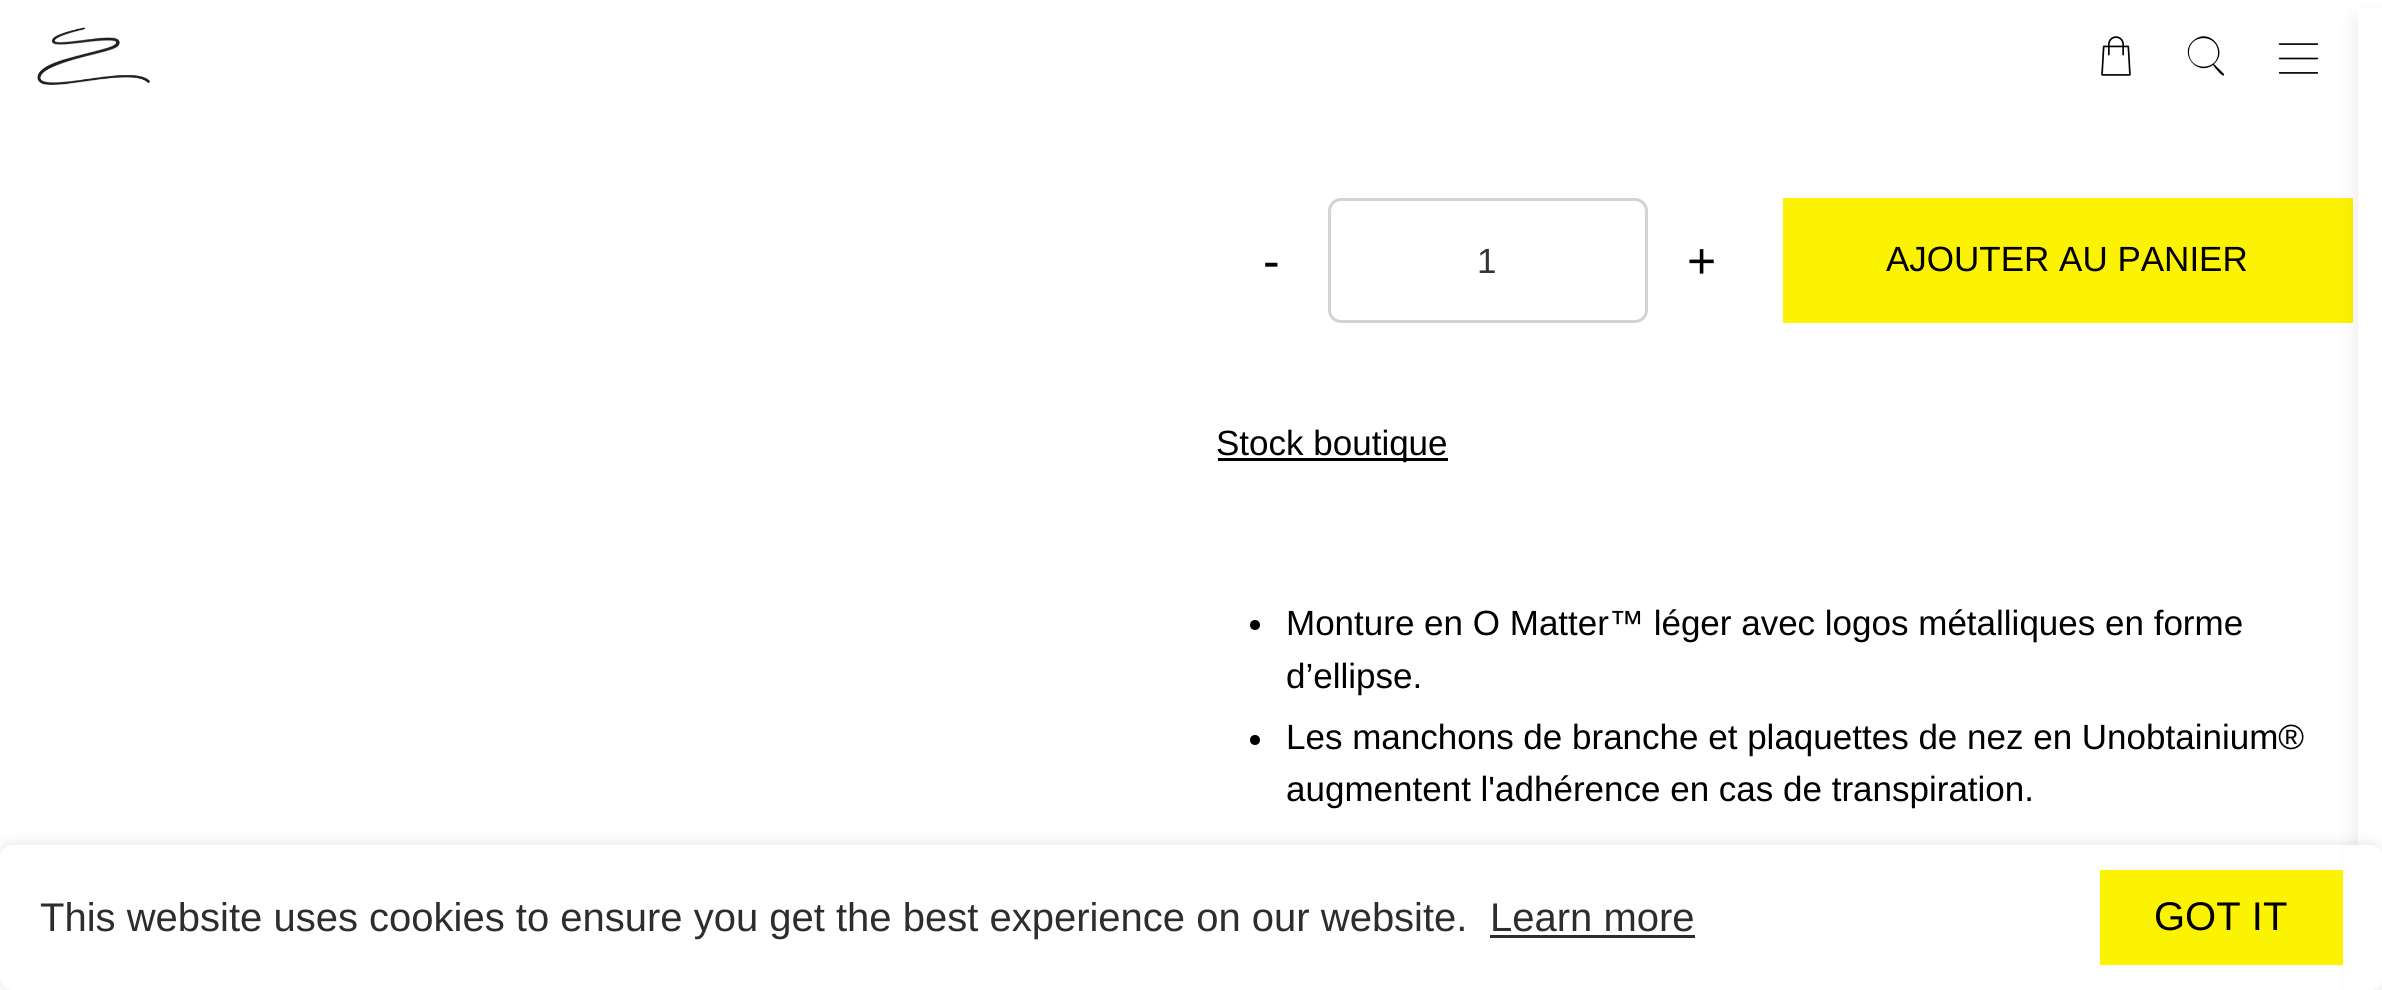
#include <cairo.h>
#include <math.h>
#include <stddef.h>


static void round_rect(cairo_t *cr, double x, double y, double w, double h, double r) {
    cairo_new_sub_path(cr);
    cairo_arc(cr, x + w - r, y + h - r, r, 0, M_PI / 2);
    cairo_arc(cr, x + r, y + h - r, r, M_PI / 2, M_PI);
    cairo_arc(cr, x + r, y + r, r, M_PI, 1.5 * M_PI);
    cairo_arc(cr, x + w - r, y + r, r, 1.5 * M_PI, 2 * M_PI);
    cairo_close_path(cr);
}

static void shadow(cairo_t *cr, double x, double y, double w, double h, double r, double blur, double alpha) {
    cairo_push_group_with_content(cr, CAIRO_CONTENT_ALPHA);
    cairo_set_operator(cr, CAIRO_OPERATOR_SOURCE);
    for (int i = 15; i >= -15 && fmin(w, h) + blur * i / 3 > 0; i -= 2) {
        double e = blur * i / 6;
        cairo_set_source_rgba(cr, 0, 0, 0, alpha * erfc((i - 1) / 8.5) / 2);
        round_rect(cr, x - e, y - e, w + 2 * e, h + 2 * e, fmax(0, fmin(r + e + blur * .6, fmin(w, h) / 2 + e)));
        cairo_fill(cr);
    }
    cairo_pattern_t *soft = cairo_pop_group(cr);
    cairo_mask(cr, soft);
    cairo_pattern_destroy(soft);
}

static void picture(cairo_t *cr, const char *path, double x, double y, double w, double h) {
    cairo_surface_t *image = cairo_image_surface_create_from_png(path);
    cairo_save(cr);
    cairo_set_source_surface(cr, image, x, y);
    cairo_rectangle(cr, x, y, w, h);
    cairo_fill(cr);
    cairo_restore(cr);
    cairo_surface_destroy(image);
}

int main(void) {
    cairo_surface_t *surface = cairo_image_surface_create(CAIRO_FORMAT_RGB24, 2382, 990);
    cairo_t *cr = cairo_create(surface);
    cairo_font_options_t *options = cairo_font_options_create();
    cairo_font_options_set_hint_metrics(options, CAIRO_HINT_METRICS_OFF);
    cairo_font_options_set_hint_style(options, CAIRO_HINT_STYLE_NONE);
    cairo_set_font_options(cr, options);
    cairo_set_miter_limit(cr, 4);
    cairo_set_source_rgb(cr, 1, 1, 1);
    cairo_paint(cr);
    picture(cr, "img1.png", 37, 27, 113, 58);
    picture(cr, "img2.png", 2101, 36, 30, 40);
    cairo_set_source_rgb(cr, 0.988, 0.953, 0.012);
    cairo_rectangle(cr, 1783, 198, 570, 125);
    cairo_fill(cr);
    cairo_set_source_rgb(cr, 0.039, 0.039, 0.039);
    shadow(cr, 2358, 20, 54, 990, 0, 10, 0.1);
    cairo_set_source_rgb(cr, 1, 1, 1);
    cairo_rectangle(cr, 2358, 8, 24, 837);
    cairo_fill(cr);
    cairo_set_source_rgb(cr, 0, 0, 0);
    cairo_new_path(cr);
    cairo_move_to(cr, 2224, 74);
    cairo_line_to(cr, 2214, 64);
    cairo_curve_to(cr, 2229, 51, 2210, 27, 2194, 40);
    cairo_curve_to(cr, 2178, 52, 2196, 77, 2213, 65);
    cairo_curve_to(cr, 2215, 68, 2223, 78, 2224, 75);
    cairo_close_path(cr);
    cairo_move_to(cr, 2189, 52);
    cairo_curve_to(cr, 2189, 34, 2217, 33, 2218, 52);
    cairo_curve_to(cr, 2219, 71, 2189, 72, 2189, 52);
    cairo_close_path(cr);
    cairo_fill(cr);
    picture(cr, "img3.png", 2278, 43, 41, 31);
    cairo_select_font_face(cr, "Liberation Sans", CAIRO_FONT_SLANT_NORMAL, CAIRO_FONT_WEIGHT_NORMAL);
    cairo_set_font_size(cr, 50);
    cairo_move_to(cr, 1263, 278);
    cairo_show_text(cr, "-");
    round_rect(cr, 1329.5, 199.5, 317, 122, 11.5);
    cairo_set_source_rgb(cr, 0.827, 0.827, 0.827);
    cairo_set_line_width(cr, 3);
    cairo_stroke(cr);
    cairo_set_font_size(cr, 35);
    cairo_set_source_rgb(cr, 0.212, 0.212, 0.212);
    cairo_move_to(cr, 1477, 273);
    cairo_show_text(cr, "1");
    cairo_set_font_size(cr, 50);
    cairo_set_source_rgb(cr, 0, 0, 0);
    cairo_move_to(cr, 1687, 278);
    cairo_show_text(cr, "+");
    cairo_set_font_size(cr, 35);
    cairo_move_to(cr, 1886, 271);
    cairo_show_text(cr, "AJOUTER AU PANIER");
    cairo_rectangle(cr, 1218, 458, 230, 3);
    cairo_fill(cr);
    cairo_move_to(cr, 1216, 455);
    cairo_show_text(cr, "Stock boutique");
    cairo_new_path(cr);
    cairo_arc(cr, 1255, 625, 5, 0, 2 * M_PI);
    cairo_fill(cr);
    cairo_move_to(cr, 1286, 635);
    cairo_show_text(cr, "Monture en O Matter™ léger avec logos métalliques en forme");
    cairo_move_to(cr, 1286, 688);
    cairo_show_text(cr, "d’ellipse.");
    cairo_new_path(cr);
    cairo_arc(cr, 1255, 740, 5, 0, 2 * M_PI);
    cairo_fill(cr);
    cairo_move_to(cr, 1286, 749);
    cairo_show_text(cr, "Les manchons de branche et plaquettes de nez en Unobtainium®");
    cairo_move_to(cr, 1286, 801);
    cairo_show_text(cr, "augmentent l'adhérence en cas de transpiration.");
    cairo_set_source_rgb(cr, 1, 1, 1);
    cairo_rectangle(cr, 2345, 845, 37, 145);
    cairo_fill(cr);
    cairo_save(cr);
    cairo_set_fill_rule(cr, CAIRO_FILL_RULE_EVEN_ODD);
    cairo_new_path(cr);
    cairo_move_to(cr, 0, 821);
    cairo_line_to(cr, 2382, 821);
    cairo_line_to(cr, 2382, 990);
    cairo_line_to(cr, 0, 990);
    cairo_close_path(cr);
    cairo_move_to(cr, 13, 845);
    cairo_line_to(cr, 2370, 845);
    cairo_curve_to(cr, 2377, 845, 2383, 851, 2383, 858);
    cairo_line_to(cr, 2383, 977);
    cairo_curve_to(cr, 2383, 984, 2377, 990, 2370, 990);
    cairo_line_to(cr, 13, 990);
    cairo_curve_to(cr, 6, 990, 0, 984, 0, 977);
    cairo_line_to(cr, 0, 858);
    cairo_curve_to(cr, 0, 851, 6, 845, 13, 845);
    cairo_close_path(cr);
    cairo_clip(cr);
    cairo_set_source_rgb(cr, 0, 0, 0);
    shadow(cr, 0, 845, 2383, 145, 13, 7.5, 0.12);
    cairo_restore(cr);
    cairo_set_font_size(cr, 40);
    cairo_set_source_rgb(cr, 0.176, 0.176, 0.176);
    cairo_move_to(cr, 40, 931);
    cairo_show_text(cr, "This website uses cookies to ensure you get the best experience on our website.");
    cairo_move_to(cr, 1490, 931);
    cairo_show_text(cr, "Learn more");
    cairo_rectangle(cr, 1490, 935, 205, 3);
    cairo_fill(cr);
    cairo_set_source_rgb(cr, 0.988, 0.953, 0.012);
    cairo_rectangle(cr, 2100, 870, 243, 95);
    cairo_fill(cr);
    cairo_set_source_rgb(cr, 0, 0, 0);
    cairo_move_to(cr, 2154, 930);
    cairo_show_text(cr, "GOT IT");
    cairo_surface_write_to_png(surface, "page.png");
    cairo_font_options_destroy(options);
    cairo_destroy(cr);
    cairo_surface_destroy(surface);
    return 0;
}
